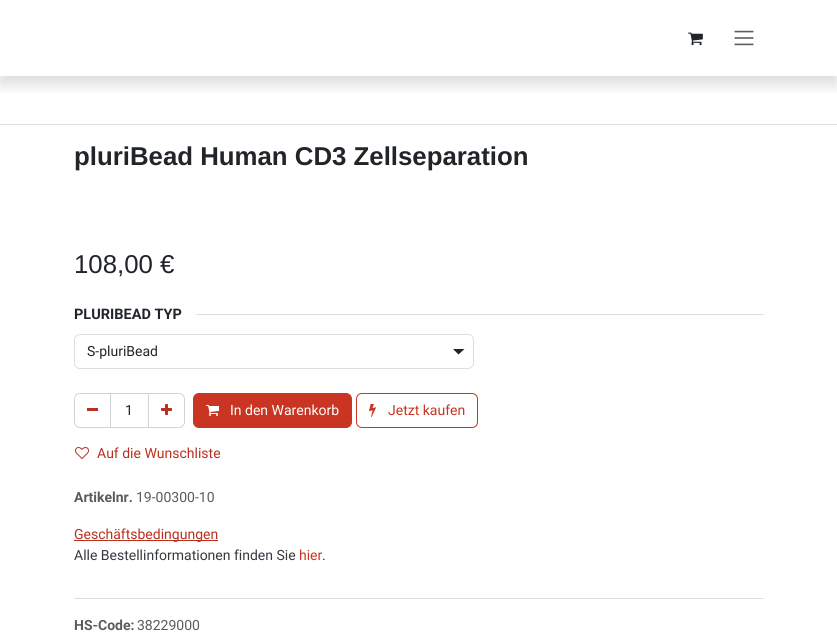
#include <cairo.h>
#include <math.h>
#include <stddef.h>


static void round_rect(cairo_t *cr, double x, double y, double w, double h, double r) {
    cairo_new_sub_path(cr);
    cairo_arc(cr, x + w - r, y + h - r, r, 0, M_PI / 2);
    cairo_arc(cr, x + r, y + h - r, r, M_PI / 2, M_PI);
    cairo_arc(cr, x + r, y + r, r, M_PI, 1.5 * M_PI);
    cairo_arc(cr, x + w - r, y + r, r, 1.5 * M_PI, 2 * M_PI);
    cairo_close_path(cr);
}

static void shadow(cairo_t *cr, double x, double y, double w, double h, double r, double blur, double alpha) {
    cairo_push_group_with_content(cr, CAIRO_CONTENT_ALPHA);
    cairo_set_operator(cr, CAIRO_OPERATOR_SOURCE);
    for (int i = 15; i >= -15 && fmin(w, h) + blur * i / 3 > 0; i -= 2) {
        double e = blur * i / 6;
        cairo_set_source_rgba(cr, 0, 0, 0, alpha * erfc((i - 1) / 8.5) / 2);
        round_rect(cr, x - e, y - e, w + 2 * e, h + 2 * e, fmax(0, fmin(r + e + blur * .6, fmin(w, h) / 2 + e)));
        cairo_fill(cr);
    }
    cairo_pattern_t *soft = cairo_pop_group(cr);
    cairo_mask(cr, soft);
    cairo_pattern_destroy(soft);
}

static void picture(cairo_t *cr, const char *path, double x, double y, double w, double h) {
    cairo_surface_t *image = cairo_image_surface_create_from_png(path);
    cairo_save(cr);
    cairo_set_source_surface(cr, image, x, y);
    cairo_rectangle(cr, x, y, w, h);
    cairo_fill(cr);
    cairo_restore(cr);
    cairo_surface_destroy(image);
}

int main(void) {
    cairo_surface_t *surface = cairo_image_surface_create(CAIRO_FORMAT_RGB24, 837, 637);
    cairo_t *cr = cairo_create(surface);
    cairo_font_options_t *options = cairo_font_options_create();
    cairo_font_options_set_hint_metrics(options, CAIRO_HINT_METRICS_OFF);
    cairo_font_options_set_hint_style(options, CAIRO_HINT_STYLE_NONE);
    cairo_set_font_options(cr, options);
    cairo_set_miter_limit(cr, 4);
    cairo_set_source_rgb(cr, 1, 1, 1);
    cairo_paint(cr);
    cairo_save(cr);
    cairo_rectangle(cr, 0, 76, 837, 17);
    cairo_clip(cr);
    cairo_set_source_rgb(cr, 0, 0, 0);
    shadow(cr, 0, 8, 837, 76, 0, 8, 0.15);
    cairo_restore(cr);
    picture(cr, "img1.png", 688, 32, 15, 14);
    picture(cr, "img2.png", 734, 30, 20, 16);
    cairo_set_source_rgb(cr, 0.871, 0.871, 0.875);
    cairo_rectangle(cr, 0, 124, 837, 1);
    cairo_fill(cr);
    cairo_select_font_face(cr, "Liberation Sans", CAIRO_FONT_SLANT_NORMAL, CAIRO_FONT_WEIGHT_BOLD);
    cairo_set_font_size(cr, 25.8);
    cairo_set_source_rgb(cr, 0.129, 0.145, 0.161);
    cairo_move_to(cr, 74, 165);
    cairo_show_text(cr, "pluriBead Human CD3 Zellseparation");
    cairo_select_font_face(cr, "Liberation Sans", CAIRO_FONT_SLANT_NORMAL, CAIRO_FONT_WEIGHT_NORMAL);
    cairo_move_to(cr, 74, 273);
    cairo_show_text(cr, "108,00 €");
    cairo_select_font_face(cr, "Roboto", CAIRO_FONT_SLANT_NORMAL, CAIRO_FONT_WEIGHT_BOLD);
    cairo_set_font_size(cr, 14.5);
    cairo_move_to(cr, 74, 319);
    cairo_show_text(cr, "PLURIBEAD TYP");
    cairo_set_source_rgb(cr, 0.871, 0.871, 0.875);
    cairo_rectangle(cr, 196, 314, 568, 1);
    cairo_fill(cr);
    cairo_set_source_rgb(cr, 0.129, 0.145, 0.161);
    cairo_new_path(cr);
    cairo_move_to(cr, 453, 349);
    cairo_line_to(cr, 464.5, 349);
    cairo_line_to(cr, 458.5, 354.5);
    cairo_close_path(cr);
    cairo_fill(cr);
    round_rect(cr, 74.5, 334.5, 399, 34, 5.5);
    cairo_set_source_rgb(cr, 0.871, 0.871, 0.875);
    cairo_set_line_width(cr, 1);
    cairo_stroke(cr);
    cairo_select_font_face(cr, "Roboto", CAIRO_FONT_SLANT_NORMAL, CAIRO_FONT_WEIGHT_NORMAL);
    cairo_set_font_size(cr, 14);
    cairo_set_source_rgb(cr, 0.129, 0.145, 0.161);
    cairo_move_to(cr, 87, 356);
    cairo_show_text(cr, "S-pluriBead");
    cairo_rectangle(cr, 110.5, 393.5, 38, 34);
    cairo_set_source_rgb(cr, 0.808, 0.831, 0.855);
    cairo_stroke(cr);
    cairo_new_path(cr);
    cairo_move_to(cr, 80, 393.5);
    cairo_line_to(cr, 110.5, 393.5);
    cairo_line_to(cr, 110.5, 427.5);
    cairo_line_to(cr, 80, 427.5);
    cairo_curve_to(cr, 77, 427.5, 74.5, 425, 74.5, 422);
    cairo_line_to(cr, 74.5, 399);
    cairo_curve_to(cr, 74.5, 396, 77, 393.5, 80, 393.5);
    cairo_close_path(cr);
    cairo_stroke(cr);
    cairo_set_source_rgb(cr, 0.725, 0.188, 0.122);
    cairo_rectangle(cr, 87, 408, 11, 3);
    cairo_fill(cr);
    cairo_set_source_rgb(cr, 0.129, 0.145, 0.161);
    cairo_move_to(cr, 125, 415);
    cairo_show_text(cr, "1");
    cairo_new_path(cr);
    cairo_move_to(cr, 148.5, 393.5);
    cairo_line_to(cr, 179, 393.5);
    cairo_curve_to(cr, 182, 393.5, 184.5, 396, 184.5, 399);
    cairo_line_to(cr, 184.5, 422);
    cairo_curve_to(cr, 184.5, 425, 182, 427.5, 179, 427.5);
    cairo_line_to(cr, 148.5, 427.5);
    cairo_close_path(cr);
    cairo_set_source_rgb(cr, 0.808, 0.831, 0.855);
    cairo_stroke(cr);
    picture(cr, "img3.png", 161, 404, 11, 11);
    cairo_set_source_rgb(cr, 0.792, 0.204, 0.133);
    round_rect(cr, 193.5, 393.5, 158, 34, 5.5);
    cairo_fill_preserve(cr);
    cairo_stroke(cr);
    picture(cr, "img4.png", 206, 405, 13, 11);
    cairo_set_source_rgb(cr, 1, 1, 1);
    cairo_move_to(cr, 230, 415);
    cairo_show_text(cr, "In den Warenkorb");
    round_rect(cr, 356.5, 393.5, 121, 34, 5.5);
    cairo_set_source_rgb(cr, 0.792, 0.204, 0.133);
    cairo_stroke(cr);
    picture(cr, "img5.png", 369, 404, 7, 13);
    cairo_move_to(cr, 388, 415);
    cairo_show_text(cr, "Jetzt kaufen");
    picture(cr, "img6.png", 75, 447, 14, 12);
    cairo_set_source_rgb(cr, 0.725, 0.188, 0.122);
    cairo_move_to(cr, 97, 458);
    cairo_show_text(cr, "Auf die Wunschliste");
    cairo_select_font_face(cr, "Roboto", CAIRO_FONT_SLANT_NORMAL, CAIRO_FONT_WEIGHT_BOLD);
    cairo_set_source_rgb(cr, 0.349, 0.361, 0.373);
    cairo_move_to(cr, 74, 502);
    cairo_show_text(cr, "Artikelnr.");
    cairo_select_font_face(cr, "Roboto", CAIRO_FONT_SLANT_NORMAL, CAIRO_FONT_WEIGHT_NORMAL);
    cairo_move_to(cr, 136, 502);
    cairo_show_text(cr, "19-00300-10");
    cairo_set_source_rgb(cr, 0.725, 0.188, 0.122);
    cairo_rectangle(cr, 74, 540, 144, 1);
    cairo_fill(cr);
    cairo_move_to(cr, 74, 539);
    cairo_show_text(cr, "Geschäftsbedingungen");
    cairo_set_source_rgb(cr, 0.204, 0.227, 0.251);
    cairo_move_to(cr, 74, 560);
    cairo_show_text(cr, "Alle Bestellinformationen finden Sie");
    cairo_set_source_rgb(cr, 0.792, 0.204, 0.133);
    cairo_move_to(cr, 299, 560);
    cairo_show_text(cr, "hier");
    cairo_set_source_rgb(cr, 0.204, 0.227, 0.251);
    cairo_move_to(cr, 322, 560);
    cairo_show_text(cr, ".");
    cairo_set_source_rgb(cr, 0.871, 0.871, 0.875);
    cairo_rectangle(cr, 74, 598, 690, 1);
    cairo_fill(cr);
    cairo_select_font_face(cr, "Roboto", CAIRO_FONT_SLANT_NORMAL, CAIRO_FONT_WEIGHT_BOLD);
    cairo_set_source_rgb(cr, 0.349, 0.361, 0.373);
    cairo_move_to(cr, 74, 630);
    cairo_show_text(cr, "HS-Code:");
    cairo_select_font_face(cr, "Roboto", CAIRO_FONT_SLANT_NORMAL, CAIRO_FONT_WEIGHT_NORMAL);
    cairo_move_to(cr, 137, 630);
    cairo_show_text(cr, "38229000");
    cairo_surface_write_to_png(surface, "page.png");
    cairo_font_options_destroy(options);
    cairo_destroy(cr);
    cairo_surface_destroy(surface);
    return 0;
}
